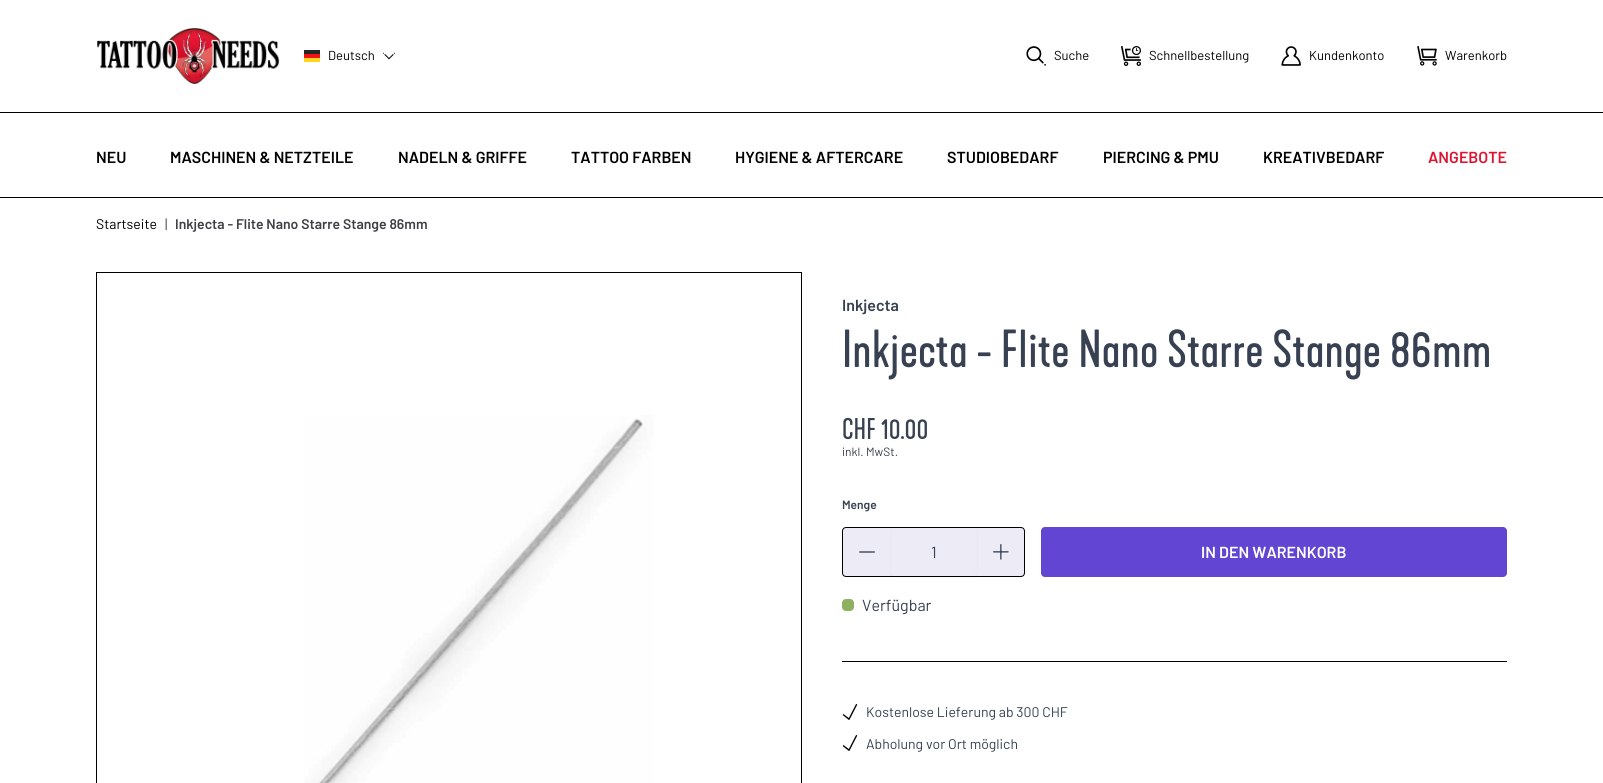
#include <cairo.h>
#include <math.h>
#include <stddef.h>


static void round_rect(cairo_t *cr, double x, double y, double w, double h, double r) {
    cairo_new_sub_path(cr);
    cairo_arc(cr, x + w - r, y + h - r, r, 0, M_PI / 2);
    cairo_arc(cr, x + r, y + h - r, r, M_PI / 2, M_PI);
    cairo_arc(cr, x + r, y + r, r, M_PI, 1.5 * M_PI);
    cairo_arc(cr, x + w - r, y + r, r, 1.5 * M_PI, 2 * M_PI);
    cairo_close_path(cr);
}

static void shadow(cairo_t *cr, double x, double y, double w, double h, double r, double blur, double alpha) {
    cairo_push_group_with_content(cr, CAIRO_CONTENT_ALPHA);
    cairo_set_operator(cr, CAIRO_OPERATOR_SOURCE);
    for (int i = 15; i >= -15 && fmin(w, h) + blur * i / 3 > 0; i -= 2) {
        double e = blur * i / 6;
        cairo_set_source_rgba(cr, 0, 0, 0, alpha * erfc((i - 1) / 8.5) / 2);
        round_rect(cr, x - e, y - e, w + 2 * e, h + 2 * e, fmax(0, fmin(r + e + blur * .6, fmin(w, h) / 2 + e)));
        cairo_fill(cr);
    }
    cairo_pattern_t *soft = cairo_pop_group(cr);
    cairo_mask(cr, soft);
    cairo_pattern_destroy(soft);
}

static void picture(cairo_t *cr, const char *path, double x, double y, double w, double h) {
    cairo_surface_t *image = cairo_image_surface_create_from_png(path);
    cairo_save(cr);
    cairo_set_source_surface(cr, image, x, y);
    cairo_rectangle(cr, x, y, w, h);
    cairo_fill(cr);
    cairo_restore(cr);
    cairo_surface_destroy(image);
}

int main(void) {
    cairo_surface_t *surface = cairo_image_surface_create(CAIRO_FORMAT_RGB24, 1603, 783);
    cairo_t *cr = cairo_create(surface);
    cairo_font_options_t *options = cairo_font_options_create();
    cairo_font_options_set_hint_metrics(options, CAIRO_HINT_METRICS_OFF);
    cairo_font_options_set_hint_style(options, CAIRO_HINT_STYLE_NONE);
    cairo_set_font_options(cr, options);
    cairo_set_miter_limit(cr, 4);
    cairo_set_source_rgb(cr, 1, 1, 1);
    cairo_paint(cr);
    picture(cr, "img1.png", 97, 28, 183, 56);
    cairo_set_source_rgb(cr, 0.149, 0.149, 0.149);
    cairo_rectangle(cr, 304, 50, 16, 4);
    cairo_fill(cr);
    cairo_set_source_rgb(cr, 0.941, 0.082, 0.082);
    cairo_rectangle(cr, 304, 54, 16, 4);
    cairo_fill(cr);
    cairo_set_source_rgb(cr, 1, 0.835, 0.129);
    cairo_rectangle(cr, 304, 58, 16, 4);
    cairo_fill(cr);
    cairo_select_font_face(cr, "Barlow", CAIRO_FONT_SLANT_NORMAL, CAIRO_FONT_WEIGHT_NORMAL);
    cairo_set_font_size(cr, 13);
    cairo_set_source_rgb(cr, 0, 0, 0);
    cairo_move_to(cr, 328, 60);
    cairo_show_text(cr, "Deutsch");
    picture(cr, "img2.png", 383, 52, 12, 8);
    picture(cr, "img3.png", 1026, 46, 20, 20);
    cairo_move_to(cr, 1054, 60);
    cairo_show_text(cr, "Suche");
    picture(cr, "img4.png", 1121, 46, 20, 20);
    cairo_move_to(cr, 1149, 60);
    cairo_show_text(cr, "Schnellbestellung");
    picture(cr, "img5.png", 1281, 46, 20, 20);
    cairo_move_to(cr, 1309, 60);
    cairo_show_text(cr, "Kundenkonto");
    picture(cr, "img6.png", 1417, 46, 20, 20);
    cairo_move_to(cr, 1445, 60);
    cairo_show_text(cr, "Warenkorb");
    cairo_rectangle(cr, 0, 112, 1603, 1);
    cairo_fill(cr);
    cairo_rectangle(cr, 0, 197, 1603, 1);
    cairo_fill(cr);
    cairo_select_font_face(cr, "Barlow SemiBold", CAIRO_FONT_SLANT_NORMAL, CAIRO_FONT_WEIGHT_NORMAL);
    cairo_set_font_size(cr, 16);
    cairo_move_to(cr, 96, 163);
    cairo_show_text(cr, "NEU");
    cairo_move_to(cr, 170, 163);
    cairo_show_text(cr, "MASCHINEN & NETZTEILE");
    cairo_move_to(cr, 398, 163);
    cairo_show_text(cr, "NADELN & GRIFFE");
    cairo_move_to(cr, 571, 163);
    cairo_show_text(cr, "TATTOO FARBEN");
    cairo_move_to(cr, 735, 163);
    cairo_show_text(cr, "HYGIENE & AFTERCARE");
    cairo_move_to(cr, 947, 163);
    cairo_show_text(cr, "STUDIOBEDARF");
    cairo_move_to(cr, 1103, 163);
    cairo_show_text(cr, "PIERCING & PMU");
    cairo_move_to(cr, 1263, 163);
    cairo_show_text(cr, "KREATIVBEDARF");
    cairo_set_source_rgb(cr, 0.878, 0.082, 0.196);
    cairo_move_to(cr, 1428, 163);
    cairo_show_text(cr, "ANGEBOTE");
    cairo_select_font_face(cr, "Barlow", CAIRO_FONT_SLANT_NORMAL, CAIRO_FONT_WEIGHT_NORMAL);
    cairo_set_font_size(cr, 14);
    cairo_set_source_rgb(cr, 0, 0, 0);
    cairo_move_to(cr, 96, 229);
    cairo_show_text(cr, "Startseite");
    cairo_set_source_rgb(cr, 0.247, 0.247, 0.275);
    cairo_move_to(cr, 165, 229);
    cairo_show_text(cr, "|");
    cairo_select_font_face(cr, "Barlow SemiBold", CAIRO_FONT_SLANT_NORMAL, CAIRO_FONT_WEIGHT_NORMAL);
    cairo_move_to(cr, 175, 229);
    cairo_show_text(cr, "Inkjecta - Flite Nano Starre Stange 86mm");
    cairo_rectangle(cr, 96.5, 272.5, 705, 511);
    cairo_set_source_rgb(cr, 0, 0, 0);
    cairo_set_line_width(cr, 1);
    cairo_stroke(cr);
    picture(cr, "img7.png", 304, 415, 350, 368);
    cairo_set_font_size(cr, 16);
    cairo_set_source_rgb(cr, 0.216, 0.255, 0.318);
    cairo_move_to(cr, 842, 311);
    cairo_show_text(cr, "Inkjecta");
    cairo_select_font_face(cr, "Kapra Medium", CAIRO_FONT_SLANT_NORMAL, CAIRO_FONT_WEIGHT_NORMAL);
    cairo_set_font_size(cr, 50);
    cairo_move_to(cr, 842, 367);
    cairo_show_text(cr, "Inkjecta - Flite Nano Starre Stange 86mm");
    cairo_set_font_size(cr, 28);
    cairo_move_to(cr, 842, 439);
    cairo_show_text(cr, "CHF 10.00");
    cairo_select_font_face(cr, "Barlow", CAIRO_FONT_SLANT_NORMAL, CAIRO_FONT_WEIGHT_NORMAL);
    cairo_set_font_size(cr, 12);
    cairo_move_to(cr, 842, 456);
    cairo_show_text(cr, "inkl. MwSt.");
    cairo_select_font_face(cr, "Barlow SemiBold", CAIRO_FONT_SLANT_NORMAL, CAIRO_FONT_WEIGHT_NORMAL);
    cairo_move_to(cr, 842, 509);
    cairo_show_text(cr, "Menge");
    cairo_set_source_rgb(cr, 0.925, 0.918, 0.961);
    round_rect(cr, 842.5, 527.5, 182, 49, 3.5);
    cairo_fill_preserve(cr);
    cairo_set_source_rgb(cr, 0, 0, 0);
    cairo_stroke(cr);
    picture(cr, "img8.png", 859, 551, 16, 2);
    cairo_set_source_rgb(cr, 0, 0, 0);
    shadow(cr, 891, 529, 86, 48, 4, 1, 0.05);
    cairo_set_source_rgb(cr, 0.925, 0.918, 0.961);
    round_rect(cr, 891, 528, 86, 48, 4);
    cairo_fill(cr);
    cairo_select_font_face(cr, "Barlow", CAIRO_FONT_SLANT_NORMAL, CAIRO_FONT_WEIGHT_NORMAL);
    cairo_set_font_size(cr, 16);
    cairo_set_source_rgb(cr, 0.216, 0.255, 0.318);
    cairo_move_to(cr, 931, 558);
    cairo_show_text(cr, "1");
    picture(cr, "img9.png", 993, 544, 16, 16);
    cairo_set_source_rgb(cr, 0.384, 0.275, 0.827);
    round_rect(cr, 1041, 527, 466, 50, 4);
    cairo_fill(cr);
    cairo_select_font_face(cr, "Barlow SemiBold", CAIRO_FONT_SLANT_NORMAL, CAIRO_FONT_WEIGHT_NORMAL);
    cairo_set_source_rgb(cr, 1, 1, 1);
    cairo_move_to(cr, 1201, 558);
    cairo_show_text(cr, "IN DEN WARENKORB");
    cairo_set_source_rgb(cr, 0.553, 0.69, 0.388);
    round_rect(cr, 842, 599, 12, 12, 4);
    cairo_fill(cr);
    cairo_select_font_face(cr, "Barlow", CAIRO_FONT_SLANT_NORMAL, CAIRO_FONT_WEIGHT_NORMAL);
    cairo_set_source_rgb(cr, 0.216, 0.255, 0.318);
    cairo_move_to(cr, 862, 611);
    cairo_show_text(cr, "Verfügbar");
    cairo_set_source_rgb(cr, 0, 0, 0);
    cairo_rectangle(cr, 842, 661, 665, 1);
    cairo_fill(cr);
    picture(cr, "img10.png", 842, 704, 16, 16);
    cairo_set_font_size(cr, 14);
    cairo_set_source_rgb(cr, 0.216, 0.255, 0.318);
    cairo_move_to(cr, 866, 717);
    cairo_show_text(cr, "Kostenlose Lieferung ab 300 CHF");
    picture(cr, "img10.png", 842, 735, 16, 16);
    cairo_move_to(cr, 866, 749);
    cairo_show_text(cr, "Abholung vor Ort möglich");
    cairo_surface_write_to_png(surface, "page.png");
    cairo_font_options_destroy(options);
    cairo_destroy(cr);
    cairo_surface_destroy(surface);
    return 0;
}
